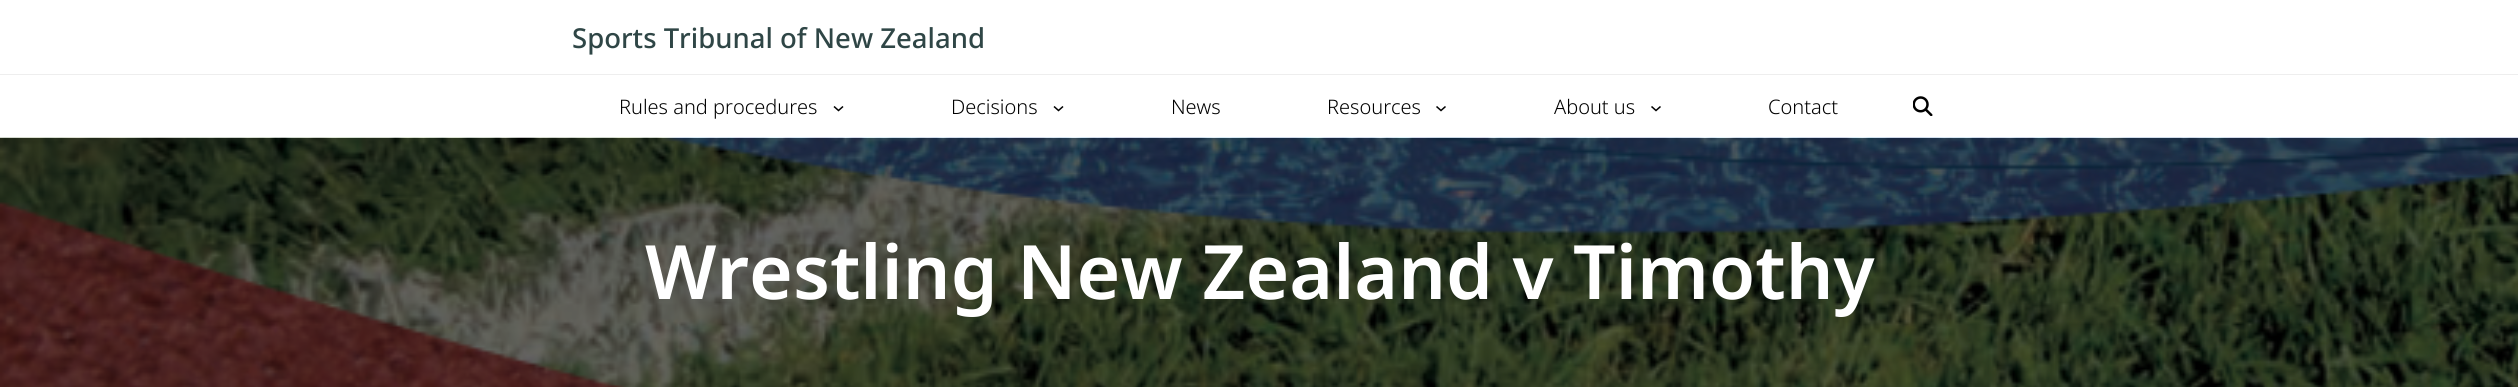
#include <cairo.h>
#include <math.h>
#include <stddef.h>


static void picture(cairo_t *cr, const char *path, double x, double y, double w, double h) {
    cairo_surface_t *image = cairo_image_surface_create_from_png(path);
    cairo_save(cr);
    cairo_set_source_surface(cr, image, x, y);
    cairo_rectangle(cr, x, y, w, h);
    cairo_fill(cr);
    cairo_restore(cr);
    cairo_surface_destroy(image);
}

int main(void) {
    cairo_surface_t *surface = cairo_image_surface_create(CAIRO_FORMAT_RGB24, 2518, 387);
    cairo_t *cr = cairo_create(surface);
    cairo_font_options_t *options = cairo_font_options_create();
    cairo_font_options_set_hint_metrics(options, CAIRO_HINT_METRICS_OFF);
    cairo_font_options_set_hint_style(options, CAIRO_HINT_STYLE_NONE);
    cairo_set_font_options(cr, options);
    cairo_set_miter_limit(cr, 4);
    cairo_set_source_rgb(cr, 1, 1, 1);
    cairo_paint(cr);
    cairo_select_font_face(cr, "Noto Sans Medium", CAIRO_FONT_SLANT_NORMAL, CAIRO_FONT_WEIGHT_NORMAL);
    cairo_set_font_size(cr, 27.5);
    cairo_set_source_rgb(cr, 0.184, 0.275, 0.275);
    cairo_move_to(cr, 572, 48);
    cairo_show_text(cr, "Sports Tribunal of New Zealand");
    cairo_set_source_rgb(cr, 0.933, 0.933, 0.933);
    cairo_rectangle(cr, 0, 74, 2518, 1);
    cairo_fill(cr);
    cairo_select_font_face(cr, "Noto Sans Light", CAIRO_FONT_SLANT_NORMAL, CAIRO_FONT_WEIGHT_NORMAL);
    cairo_set_font_size(cr, 20);
    cairo_set_source_rgb(cr, 0, 0, 0);
    cairo_move_to(cr, 619, 114);
    cairo_show_text(cr, "Rules and procedures");
    cairo_new_path(cr);
    cairo_move_to(cr, 834, 106.5);
    cairo_line_to(cr, 838.5, 110.5);
    cairo_line_to(cr, 843, 106.5);
    cairo_set_line_width(cr, 1.5);
    cairo_stroke(cr);
    cairo_move_to(cr, 951, 114);
    cairo_show_text(cr, "Decisions");
    cairo_new_path(cr);
    cairo_move_to(cr, 1054, 106.5);
    cairo_line_to(cr, 1058.5, 110.5);
    cairo_line_to(cr, 1063, 106.5);
    cairo_stroke(cr);
    cairo_move_to(cr, 1171, 114);
    cairo_show_text(cr, "News");
    cairo_move_to(cr, 1327, 114);
    cairo_show_text(cr, "Resources");
    cairo_new_path(cr);
    cairo_move_to(cr, 1436.5, 106.5);
    cairo_line_to(cr, 1441, 110.5);
    cairo_line_to(cr, 1445.5, 106.5);
    cairo_stroke(cr);
    cairo_move_to(cr, 1554, 114);
    cairo_show_text(cr, "About us");
    cairo_new_path(cr);
    cairo_move_to(cr, 1651.5, 106.5);
    cairo_line_to(cr, 1656, 110.5);
    cairo_line_to(cr, 1660.5, 106.5);
    cairo_stroke(cr);
    cairo_move_to(cr, 1768, 114);
    cairo_show_text(cr, "Contact");
    picture(cr, "img1.png", 1913, 96, 20, 20);
    picture(cr, "img2.png", 0, 137, 2518, 250);
    cairo_select_font_face(cr, "Noto Sans SemiBold", CAIRO_FONT_SLANT_NORMAL, CAIRO_FONT_WEIGHT_NORMAL);
    cairo_set_font_size(cr, 75);
    cairo_set_source_rgb(cr, 1, 1, 1);
    cairo_move_to(cr, 645, 299);
    cairo_show_text(cr, "Wrestling New Zealand v Timothy");
    cairo_surface_write_to_png(surface, "page.png");
    cairo_font_options_destroy(options);
    cairo_destroy(cr);
    cairo_surface_destroy(surface);
    return 0;
}
